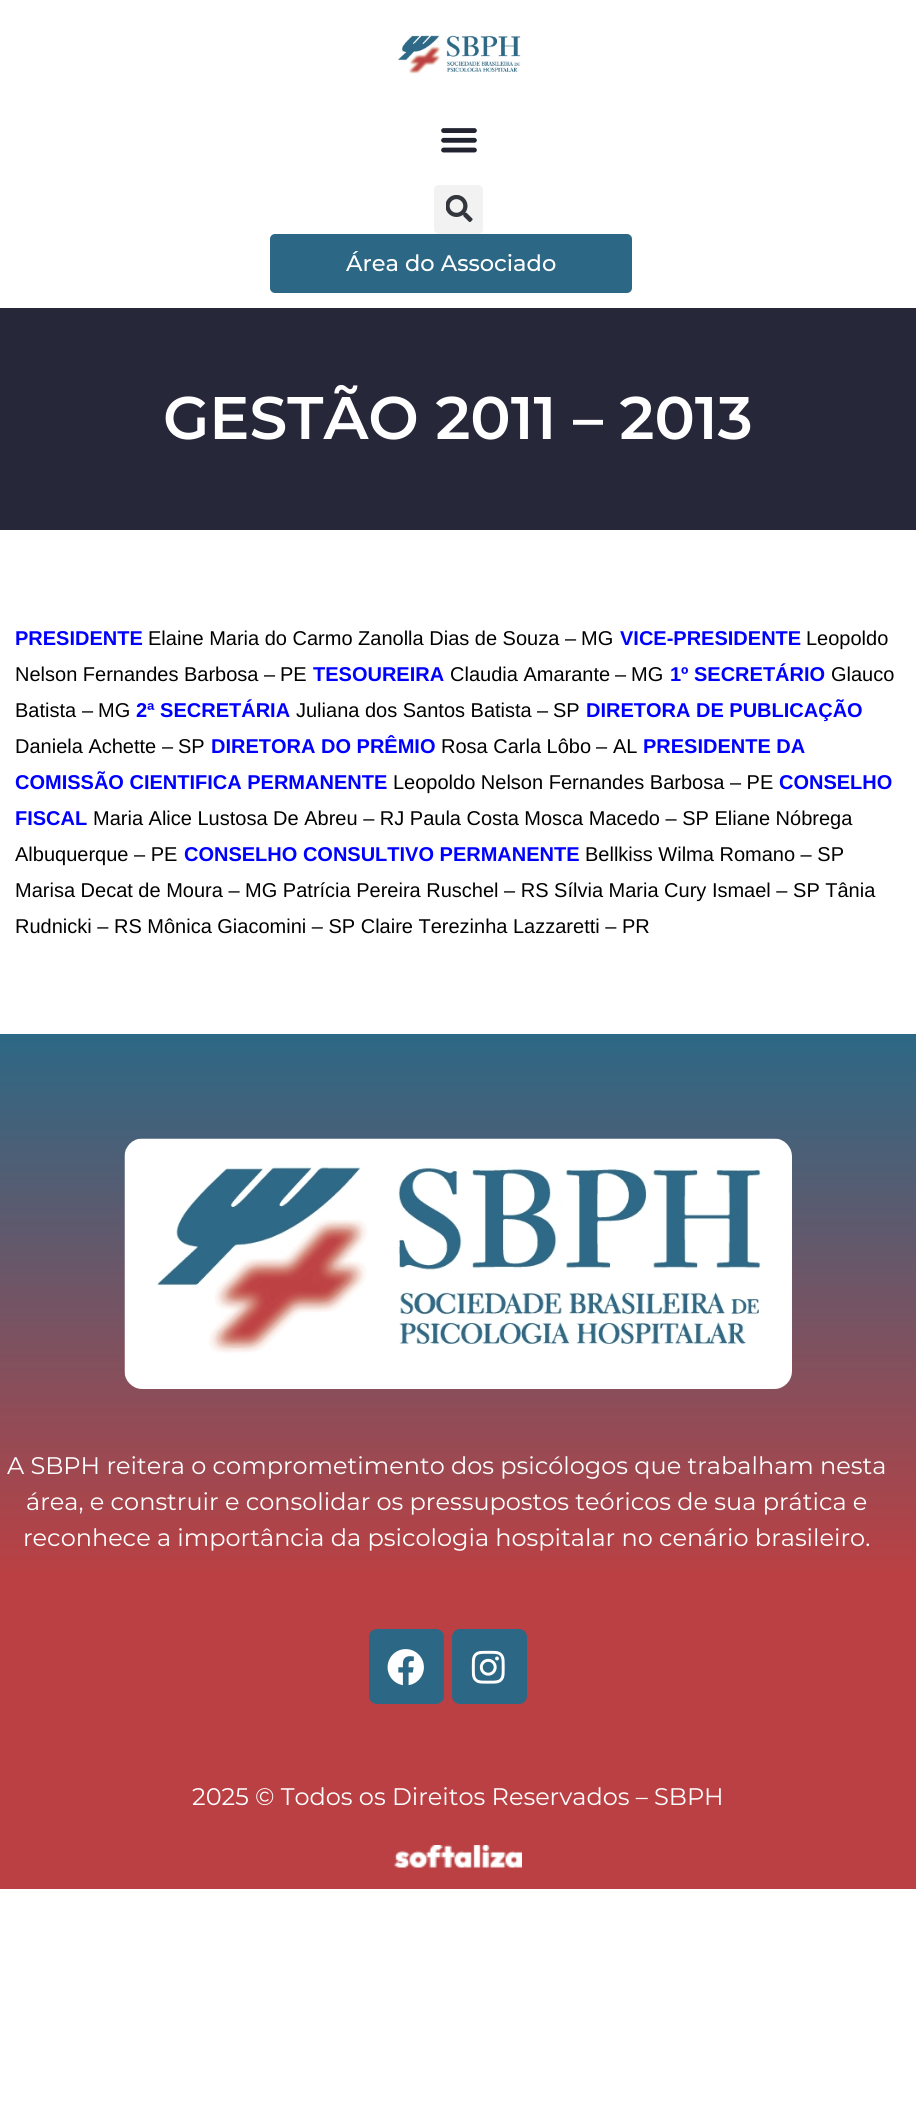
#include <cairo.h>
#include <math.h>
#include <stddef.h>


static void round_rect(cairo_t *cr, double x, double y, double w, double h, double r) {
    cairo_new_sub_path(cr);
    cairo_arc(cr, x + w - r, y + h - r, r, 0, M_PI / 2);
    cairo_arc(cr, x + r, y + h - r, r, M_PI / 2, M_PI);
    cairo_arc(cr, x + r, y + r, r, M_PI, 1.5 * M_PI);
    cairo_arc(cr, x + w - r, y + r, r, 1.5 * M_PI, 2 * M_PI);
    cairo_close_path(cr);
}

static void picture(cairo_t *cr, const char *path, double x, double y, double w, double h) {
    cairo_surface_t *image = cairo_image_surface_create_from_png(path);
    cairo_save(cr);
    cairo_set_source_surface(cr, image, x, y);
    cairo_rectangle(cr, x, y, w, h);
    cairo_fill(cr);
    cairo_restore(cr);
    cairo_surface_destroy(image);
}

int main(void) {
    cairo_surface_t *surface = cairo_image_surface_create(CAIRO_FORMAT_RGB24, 916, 2121);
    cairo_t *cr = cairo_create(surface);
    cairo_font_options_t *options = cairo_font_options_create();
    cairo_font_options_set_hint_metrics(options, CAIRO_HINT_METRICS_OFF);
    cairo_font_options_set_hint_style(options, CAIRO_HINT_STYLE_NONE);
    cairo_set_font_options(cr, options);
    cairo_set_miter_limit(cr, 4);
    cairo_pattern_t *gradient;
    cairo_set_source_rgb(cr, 1, 1, 1);
    cairo_paint(cr);
    picture(cr, "img1.png", 398, 35, 123, 39);
    picture(cr, "img2.png", 441, 128, 36, 25);
    cairo_set_source_rgb(cr, 0.949, 0.949, 0.949);
    round_rect(cr, 434, 185, 49, 49, 5);
    cairo_fill(cr);
    picture(cr, "img3.png", 446, 195, 27, 27);
    cairo_set_source_rgb(cr, 0.173, 0.408, 0.522);
    round_rect(cr, 270, 234, 362, 59, 5);
    cairo_fill(cr);
    cairo_select_font_face(cr, "Montserrat Medium", CAIRO_FONT_SLANT_NORMAL, CAIRO_FONT_WEIGHT_NORMAL);
    cairo_set_font_size(cr, 22.5);
    cairo_set_source_rgb(cr, 1, 1, 1);
    cairo_move_to(cr, 346, 271);
    cairo_show_text(cr, "Área do Associado");
    cairo_set_source_rgb(cr, 0.149, 0.153, 0.224);
    cairo_rectangle(cr, 0, 308, 916, 222);
    cairo_fill(cr);
    cairo_select_font_face(cr, "Montserrat SemiBold", CAIRO_FONT_SLANT_NORMAL, CAIRO_FONT_WEIGHT_NORMAL);
    cairo_set_font_size(cr, 60);
    cairo_set_source_rgb(cr, 1, 1, 1);
    cairo_move_to(cr, 163, 439);
    cairo_show_text(cr, "GESTÃO 2011 – 2013");
    cairo_select_font_face(cr, "Liberation Sans", CAIRO_FONT_SLANT_NORMAL, CAIRO_FONT_WEIGHT_BOLD);
    cairo_set_font_size(cr, 20);
    cairo_set_source_rgb(cr, 0, 0, 1);
    cairo_move_to(cr, 15, 645);
    cairo_show_text(cr, "PRESIDENTE");
    cairo_select_font_face(cr, "Liberation Sans", CAIRO_FONT_SLANT_NORMAL, CAIRO_FONT_WEIGHT_NORMAL);
    cairo_set_source_rgb(cr, 0, 0, 0);
    cairo_move_to(cr, 148, 645);
    cairo_show_text(cr, "Elaine Maria do Carmo Zanolla Dias de Souza");
    cairo_move_to(cr, 565, 645);
    cairo_show_text(cr, "–");
    cairo_move_to(cr, 581, 645);
    cairo_show_text(cr, "MG");
    cairo_select_font_face(cr, "Liberation Sans", CAIRO_FONT_SLANT_NORMAL, CAIRO_FONT_WEIGHT_BOLD);
    cairo_set_source_rgb(cr, 0, 0, 1);
    cairo_move_to(cr, 620, 645);
    cairo_show_text(cr, "VICE-PRESIDENTE");
    cairo_select_font_face(cr, "Liberation Sans", CAIRO_FONT_SLANT_NORMAL, CAIRO_FONT_WEIGHT_NORMAL);
    cairo_set_source_rgb(cr, 0, 0, 0);
    cairo_move_to(cr, 806, 645);
    cairo_show_text(cr, "Leopoldo");
    cairo_move_to(cr, 15, 681);
    cairo_show_text(cr, "Nelson Fernandes Barbosa");
    cairo_move_to(cr, 264, 681);
    cairo_show_text(cr, "–");
    cairo_move_to(cr, 280, 681);
    cairo_show_text(cr, "PE");
    cairo_select_font_face(cr, "Liberation Sans", CAIRO_FONT_SLANT_NORMAL, CAIRO_FONT_WEIGHT_BOLD);
    cairo_set_source_rgb(cr, 0, 0, 1);
    cairo_move_to(cr, 313, 681);
    cairo_show_text(cr, "TESOUREIRA");
    cairo_select_font_face(cr, "Liberation Sans", CAIRO_FONT_SLANT_NORMAL, CAIRO_FONT_WEIGHT_NORMAL);
    cairo_set_source_rgb(cr, 0, 0, 0);
    cairo_move_to(cr, 450, 681);
    cairo_show_text(cr, "Claudia Amarante");
    cairo_move_to(cr, 615, 681);
    cairo_show_text(cr, "–");
    cairo_move_to(cr, 631, 681);
    cairo_show_text(cr, "MG");
    cairo_select_font_face(cr, "Liberation Sans", CAIRO_FONT_SLANT_NORMAL, CAIRO_FONT_WEIGHT_BOLD);
    cairo_set_source_rgb(cr, 0, 0, 1);
    cairo_move_to(cr, 670, 681);
    cairo_show_text(cr, "1º SECRETÁRIO");
    cairo_select_font_face(cr, "Liberation Sans", CAIRO_FONT_SLANT_NORMAL, CAIRO_FONT_WEIGHT_NORMAL);
    cairo_set_source_rgb(cr, 0, 0, 0);
    cairo_move_to(cr, 831, 681);
    cairo_show_text(cr, "Glauco");
    cairo_move_to(cr, 15, 717);
    cairo_show_text(cr, "Batista");
    cairo_move_to(cr, 82, 717);
    cairo_show_text(cr, "–");
    cairo_move_to(cr, 98, 717);
    cairo_show_text(cr, "MG");
    cairo_select_font_face(cr, "Liberation Sans", CAIRO_FONT_SLANT_NORMAL, CAIRO_FONT_WEIGHT_BOLD);
    cairo_set_source_rgb(cr, 0, 0, 1);
    cairo_move_to(cr, 136, 717);
    cairo_show_text(cr, "2ª SECRETÁRIA");
    cairo_select_font_face(cr, "Liberation Sans", CAIRO_FONT_SLANT_NORMAL, CAIRO_FONT_WEIGHT_NORMAL);
    cairo_set_source_rgb(cr, 0, 0, 0);
    cairo_move_to(cr, 296, 717);
    cairo_show_text(cr, "Juliana dos Santos Batista");
    cairo_move_to(cr, 537, 717);
    cairo_show_text(cr, "–");
    cairo_move_to(cr, 553, 717);
    cairo_show_text(cr, "SP");
    cairo_select_font_face(cr, "Liberation Sans", CAIRO_FONT_SLANT_NORMAL, CAIRO_FONT_WEIGHT_BOLD);
    cairo_set_source_rgb(cr, 0, 0, 1);
    cairo_move_to(cr, 586, 717);
    cairo_show_text(cr, "DIRETORA DE PUBLICAÇÃO");
    cairo_select_font_face(cr, "Liberation Sans", CAIRO_FONT_SLANT_NORMAL, CAIRO_FONT_WEIGHT_NORMAL);
    cairo_set_source_rgb(cr, 0, 0, 0);
    cairo_move_to(cr, 15, 753);
    cairo_show_text(cr, "Daniela Achette");
    cairo_move_to(cr, 162, 753);
    cairo_show_text(cr, "–");
    cairo_move_to(cr, 178, 753);
    cairo_show_text(cr, "SP");
    cairo_select_font_face(cr, "Liberation Sans", CAIRO_FONT_SLANT_NORMAL, CAIRO_FONT_WEIGHT_BOLD);
    cairo_set_source_rgb(cr, 0, 0, 1);
    cairo_move_to(cr, 211, 753);
    cairo_show_text(cr, "DIRETORA DO PRÊMIO");
    cairo_select_font_face(cr, "Liberation Sans", CAIRO_FONT_SLANT_NORMAL, CAIRO_FONT_WEIGHT_NORMAL);
    cairo_set_source_rgb(cr, 0, 0, 0);
    cairo_move_to(cr, 441, 753);
    cairo_show_text(cr, "Rosa Carla Lôbo");
    cairo_move_to(cr, 596, 753);
    cairo_show_text(cr, "–");
    cairo_move_to(cr, 613, 753);
    cairo_show_text(cr, "AL");
    cairo_select_font_face(cr, "Liberation Sans", CAIRO_FONT_SLANT_NORMAL, CAIRO_FONT_WEIGHT_BOLD);
    cairo_set_source_rgb(cr, 0, 0, 1);
    cairo_move_to(cr, 643, 753);
    cairo_show_text(cr, "PRESIDENTE DA");
    cairo_move_to(cr, 15, 789);
    cairo_show_text(cr, "COMISSÃO CIENTIFICA PERMANENTE");
    cairo_select_font_face(cr, "Liberation Sans", CAIRO_FONT_SLANT_NORMAL, CAIRO_FONT_WEIGHT_NORMAL);
    cairo_set_source_rgb(cr, 0, 0, 0);
    cairo_move_to(cr, 393, 789);
    cairo_show_text(cr, "Leopoldo Nelson Fernandes Barbosa – PE");
    cairo_select_font_face(cr, "Liberation Sans", CAIRO_FONT_SLANT_NORMAL, CAIRO_FONT_WEIGHT_BOLD);
    cairo_set_source_rgb(cr, 0, 0, 1);
    cairo_move_to(cr, 779, 789);
    cairo_show_text(cr, "CONSELHO");
    cairo_move_to(cr, 15, 825);
    cairo_show_text(cr, "FISCAL");
    cairo_select_font_face(cr, "Liberation Sans", CAIRO_FONT_SLANT_NORMAL, CAIRO_FONT_WEIGHT_NORMAL);
    cairo_set_source_rgb(cr, 0, 0, 0);
    cairo_move_to(cr, 93, 825);
    cairo_show_text(cr, "Maria Alice Lustosa De Abreu – RJ Paula Costa Mosca Macedo – SP Eliane Nóbrega");
    cairo_move_to(cr, 15, 861);
    cairo_show_text(cr, "Albuquerque – PE");
    cairo_select_font_face(cr, "Liberation Sans", CAIRO_FONT_SLANT_NORMAL, CAIRO_FONT_WEIGHT_BOLD);
    cairo_set_source_rgb(cr, 0, 0, 1);
    cairo_move_to(cr, 184, 861);
    cairo_show_text(cr, "CONSELHO CONSULTIVO PERMANENTE");
    cairo_select_font_face(cr, "Liberation Sans", CAIRO_FONT_SLANT_NORMAL, CAIRO_FONT_WEIGHT_NORMAL);
    cairo_set_source_rgb(cr, 0, 0, 0);
    cairo_move_to(cr, 585, 861);
    cairo_show_text(cr, "Bellkiss Wilma Romano – SP");
    cairo_move_to(cr, 15, 897);
    cairo_show_text(cr, "Marisa Decat de Moura – MG Patrícia Pereira Ruschel – RS Sílvia Maria Cury Ismael – SP Tânia");
    cairo_move_to(cr, 15, 933);
    cairo_show_text(cr, "Rudnicki – RS Mônica Giacomini – SP Claire Terezinha Lazzaretti – PR");
    gradient = cairo_pattern_create_linear(458, 1034, 458, 1779);
    cairo_pattern_add_color_stop_rgba(gradient, 0, 0.173, 0.408, 0.522, 1);
    cairo_pattern_add_color_stop_rgba(gradient, 0.73, 0.733, 0.251, 0.263, 1);
    cairo_set_source(cr, gradient);
    cairo_pattern_destroy(gradient);
    cairo_rectangle(cr, 0, 1034, 916, 745);
    cairo_fill(cr);
    picture(cr, "img4.png", 124, 1138, 668, 251);
    cairo_select_font_face(cr, "Montserrat", CAIRO_FONT_SLANT_NORMAL, CAIRO_FONT_WEIGHT_NORMAL);
    cairo_set_font_size(cr, 24);
    cairo_set_source_rgb(cr, 1, 1, 1);
    cairo_move_to(cr, 7, 1474);
    cairo_show_text(cr, "A SBPH reitera o comprometimento dos psicólogos que trabalham nesta");
    cairo_move_to(cr, 26, 1510);
    cairo_show_text(cr, "área, e construir e consolidar os pressupostos teóricos de sua prática e");
    cairo_move_to(cr, 23, 1546);
    cairo_show_text(cr, "reconhece a importância da psicologia hospitalar no cenário brasileiro.");
    cairo_set_source_rgb(cr, 0.173, 0.408, 0.522);
    round_rect(cr, 369, 1629, 75, 75, 8);
    cairo_fill(cr);
    picture(cr, "img5.png", 387, 1649, 37, 37);
    round_rect(cr, 452, 1629, 75, 75, 8);
    cairo_fill(cr);
    picture(cr, "img6.png", 471, 1650, 34, 34);
    cairo_set_source_rgb(cr, 0.733, 0.251, 0.263);
    cairo_rectangle(cr, 0, 1779, 916, 110);
    cairo_fill(cr);
    cairo_set_source_rgb(cr, 1, 1, 1);
    cairo_move_to(cr, 192, 1805);
    cairo_show_text(cr, "2025 © Todos os Direitos Reservados – SBPH");
    picture(cr, "img7.png", 394, 1845, 128, 23);
    cairo_surface_write_to_png(surface, "page.png");
    cairo_font_options_destroy(options);
    cairo_destroy(cr);
    cairo_surface_destroy(surface);
    return 0;
}
